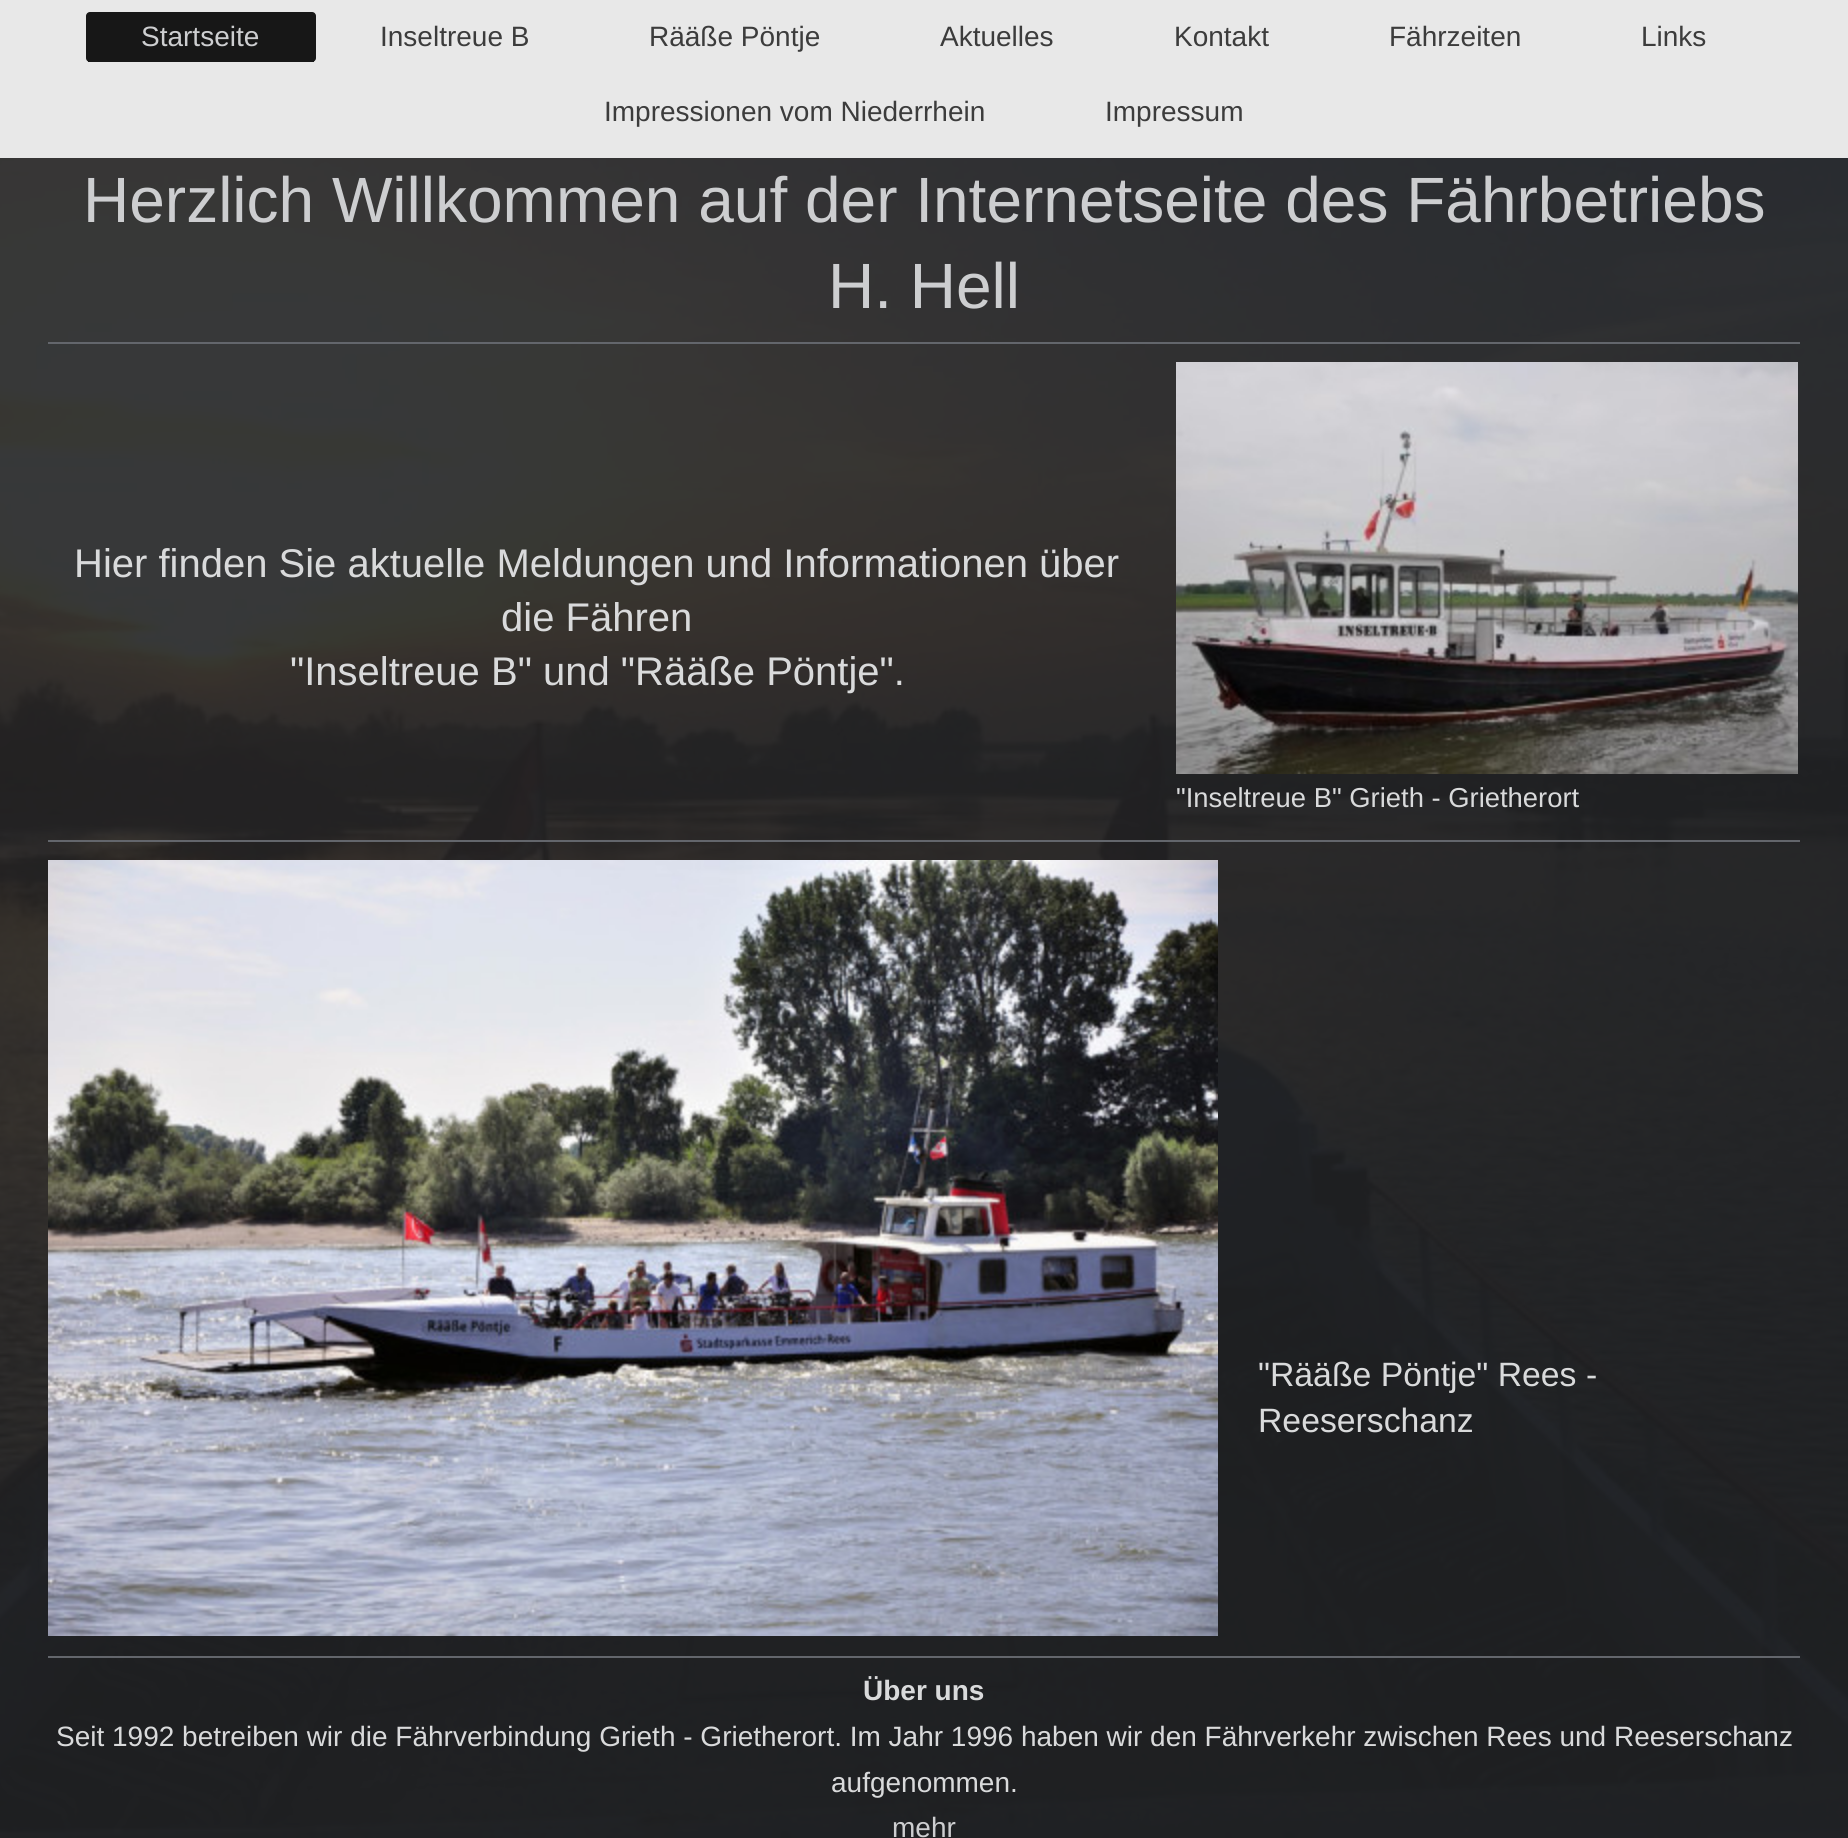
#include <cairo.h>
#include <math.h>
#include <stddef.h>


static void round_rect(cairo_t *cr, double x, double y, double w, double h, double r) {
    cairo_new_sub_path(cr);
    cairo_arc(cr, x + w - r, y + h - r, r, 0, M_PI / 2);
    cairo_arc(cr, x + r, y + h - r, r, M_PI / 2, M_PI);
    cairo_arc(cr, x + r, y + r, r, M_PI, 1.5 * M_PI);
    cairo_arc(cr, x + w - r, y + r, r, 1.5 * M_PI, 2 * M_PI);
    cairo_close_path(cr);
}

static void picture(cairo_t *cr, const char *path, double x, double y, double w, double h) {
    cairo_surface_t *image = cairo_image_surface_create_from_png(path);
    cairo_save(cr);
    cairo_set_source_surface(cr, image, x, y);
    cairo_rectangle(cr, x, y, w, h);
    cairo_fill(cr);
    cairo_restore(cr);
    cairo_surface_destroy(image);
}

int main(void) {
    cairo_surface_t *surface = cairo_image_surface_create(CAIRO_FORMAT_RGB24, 1848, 1838);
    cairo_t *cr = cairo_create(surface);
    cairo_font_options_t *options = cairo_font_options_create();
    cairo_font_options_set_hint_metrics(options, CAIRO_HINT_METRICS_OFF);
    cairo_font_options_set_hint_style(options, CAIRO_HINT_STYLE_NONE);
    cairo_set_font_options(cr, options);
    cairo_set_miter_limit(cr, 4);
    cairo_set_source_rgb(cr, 1, 1, 1);
    cairo_paint(cr);
    picture(cr, "img1.png", 0, 158, 1848, 1680);
    cairo_set_source_rgb(cr, 0.91, 0.91, 0.91);
    cairo_rectangle(cr, 0, 0, 1848, 158);
    cairo_fill(cr);
    cairo_set_source_rgb(cr, 0.09, 0.09, 0.09);
    round_rect(cr, 86, 12, 230, 50, 4);
    cairo_fill(cr);
    cairo_rectangle(cr, 88, 61, 226, 1);
    cairo_fill(cr);
    cairo_select_font_face(cr, "Liberation Sans", CAIRO_FONT_SLANT_NORMAL, CAIRO_FONT_WEIGHT_NORMAL);
    cairo_set_font_size(cr, 28);
    cairo_set_source_rgb(cr, 0.804, 0.808, 0.816);
    cairo_move_to(cr, 141, 46);
    cairo_show_text(cr, "Startseite");
    cairo_set_source_rgb(cr, 0.235, 0.235, 0.235);
    cairo_move_to(cr, 380, 46);
    cairo_show_text(cr, "Inseltreue B");
    cairo_move_to(cr, 649, 46);
    cairo_show_text(cr, "Rääße Pöntje");
    cairo_move_to(cr, 940, 46);
    cairo_show_text(cr, "Aktuelles");
    cairo_move_to(cr, 1174, 46);
    cairo_show_text(cr, "Kontakt");
    cairo_move_to(cr, 1389, 46);
    cairo_show_text(cr, "Fährzeiten");
    cairo_move_to(cr, 1641, 46);
    cairo_show_text(cr, "Links");
    cairo_move_to(cr, 604, 121);
    cairo_show_text(cr, "Impressionen vom Niederrhein");
    cairo_move_to(cr, 1105, 121);
    cairo_show_text(cr, "Impressum");
    cairo_set_font_size(cr, 64);
    cairo_set_source_rgb(cr, 0.804, 0.808, 0.816);
    cairo_move_to(cr, 83, 222);
    cairo_show_text(cr, "Herzlich Willkommen auf der Internetseite des Fährbetriebs");
    cairo_move_to(cr, 828, 308);
    cairo_show_text(cr, "H. Hell");
    cairo_set_source_rgb(cr, 0.388, 0.4, 0.424);
    cairo_rectangle(cr, 48, 342, 1752, 2);
    cairo_fill(cr);
    cairo_set_font_size(cr, 40);
    cairo_set_source_rgb(cr, 0.851, 0.855, 0.859);
    cairo_move_to(cr, 74, 577);
    cairo_show_text(cr, "Hier finden Sie aktuelle Meldungen und Informationen über");
    cairo_move_to(cr, 501, 631);
    cairo_show_text(cr, "die Fähren");
    cairo_move_to(cr, 290, 685);
    cairo_show_text(cr, "\"Inseltreue B\" und \"Rääße Pöntje\".");
    picture(cr, "img2.png", 1176, 362, 622, 412);
    cairo_set_font_size(cr, 27.4);
    cairo_move_to(cr, 1176, 807);
    cairo_show_text(cr, "\"Inseltreue B\" Grieth - Grietherort");
    cairo_set_source_rgb(cr, 0.388, 0.4, 0.424);
    cairo_rectangle(cr, 48, 840, 1752, 2);
    cairo_fill(cr);
    picture(cr, "img3.png", 48, 860, 1170, 776);
    cairo_set_font_size(cr, 33.75);
    cairo_set_source_rgb(cr, 0.851, 0.855, 0.859);
    cairo_move_to(cr, 1258, 1386);
    cairo_show_text(cr, "\"Rääße Pöntje\" Rees -");
    cairo_move_to(cr, 1258, 1432);
    cairo_show_text(cr, "Reeserschanz");
    cairo_set_source_rgb(cr, 0.388, 0.4, 0.424);
    cairo_rectangle(cr, 48, 1656, 1752, 2);
    cairo_fill(cr);
    cairo_select_font_face(cr, "Liberation Sans", CAIRO_FONT_SLANT_NORMAL, CAIRO_FONT_WEIGHT_BOLD);
    cairo_set_font_size(cr, 28);
    cairo_set_source_rgb(cr, 0.851, 0.855, 0.859);
    cairo_move_to(cr, 863, 1700);
    cairo_show_text(cr, "Über uns");
    cairo_select_font_face(cr, "Liberation Sans", CAIRO_FONT_SLANT_NORMAL, CAIRO_FONT_WEIGHT_NORMAL);
    cairo_move_to(cr, 56, 1746);
    cairo_show_text(cr, "Seit 1992 betreiben wir die Fährverbindung Grieth - Grietherort. Im Jahr 1996 haben wir den Fährverkehr zwischen Rees und Reeserschanz");
    cairo_move_to(cr, 831, 1792);
    cairo_show_text(cr, "aufgenommen.");
    cairo_set_source_rgb(cr, 0.804, 0.808, 0.816);
    cairo_move_to(cr, 892, 1837);
    cairo_show_text(cr, "mehr");
    cairo_surface_write_to_png(surface, "page.png");
    cairo_font_options_destroy(options);
    cairo_destroy(cr);
    cairo_surface_destroy(surface);
    return 0;
}
